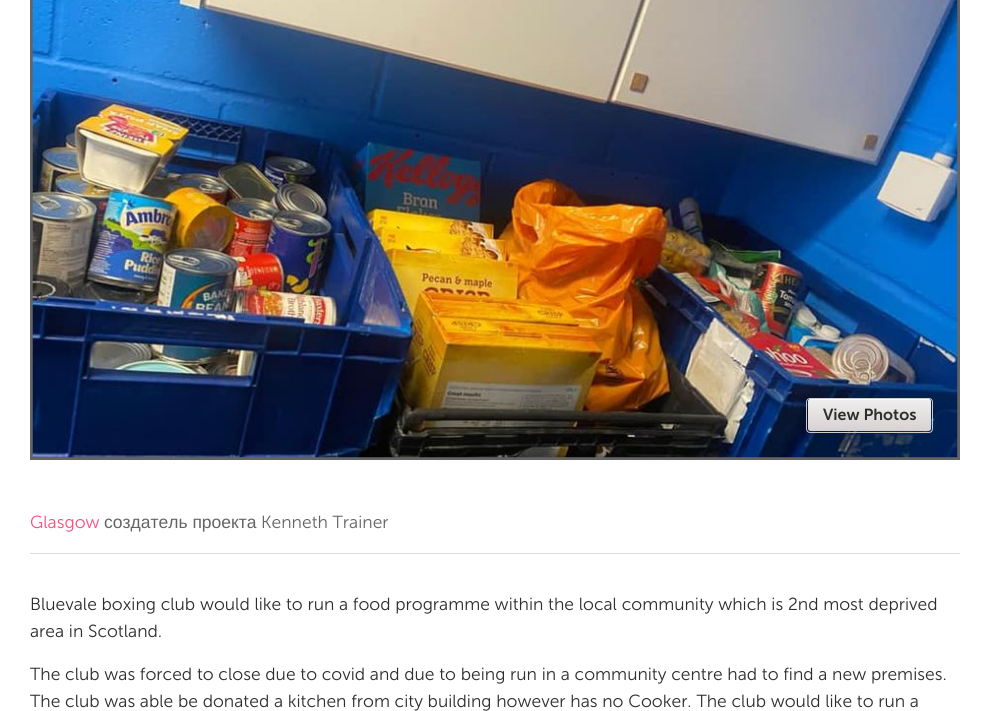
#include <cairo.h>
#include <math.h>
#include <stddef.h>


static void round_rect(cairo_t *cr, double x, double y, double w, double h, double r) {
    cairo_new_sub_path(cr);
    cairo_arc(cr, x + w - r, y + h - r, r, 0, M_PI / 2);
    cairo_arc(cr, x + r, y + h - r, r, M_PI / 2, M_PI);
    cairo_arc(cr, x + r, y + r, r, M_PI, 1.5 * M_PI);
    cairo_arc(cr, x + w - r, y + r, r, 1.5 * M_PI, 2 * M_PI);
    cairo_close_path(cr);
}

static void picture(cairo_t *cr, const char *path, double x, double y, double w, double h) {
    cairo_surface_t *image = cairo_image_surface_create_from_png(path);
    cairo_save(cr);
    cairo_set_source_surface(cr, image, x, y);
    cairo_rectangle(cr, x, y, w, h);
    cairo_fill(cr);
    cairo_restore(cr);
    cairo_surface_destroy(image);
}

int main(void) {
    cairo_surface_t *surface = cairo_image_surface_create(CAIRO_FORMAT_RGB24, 989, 711);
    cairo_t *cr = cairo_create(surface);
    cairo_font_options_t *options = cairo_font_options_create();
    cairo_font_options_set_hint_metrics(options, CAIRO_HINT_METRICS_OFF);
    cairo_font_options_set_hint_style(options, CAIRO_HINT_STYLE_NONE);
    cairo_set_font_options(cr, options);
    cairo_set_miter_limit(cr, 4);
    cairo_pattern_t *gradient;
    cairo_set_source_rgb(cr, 1, 1, 1);
    cairo_paint(cr);
    cairo_set_source_rgb(cr, 0.392, 0.392, 0.392);
    cairo_rectangle(cr, 30, 0, 930, 460);
    cairo_fill(cr);
    picture(cr, "img1.png", 32, 0, 926, 458);
    gradient = cairo_pattern_create_linear(869, 399, 869, 431);
    cairo_pattern_add_color_stop_rgba(gradient, 0, 0.941, 0.941, 0.941, 1);
    cairo_pattern_add_color_stop_rgba(gradient, 1, 0.847, 0.816, 0.816, 1);
    cairo_set_source(cr, gradient);
    cairo_pattern_destroy(gradient);
    round_rect(cr, 808, 399, 123, 32, 2.5);
    cairo_fill(cr);
    cairo_set_source_rgb(cr, 1, 1, 1);
    cairo_new_path(cr);
    cairo_move_to(cr, 810, 400);
    cairo_line_to(cr, 929, 400);
    cairo_line_to(cr, 931, 401);
    cairo_line_to(cr, 931, 402);
    cairo_curve_to(cr, 931, 400, 930, 399, 928, 399);
    cairo_line_to(cr, 810, 399);
    cairo_curve_to(cr, 808, 400, 808, 401, 808, 402);
    cairo_curve_to(cr, 808, 401, 809, 400, 810, 400);
    cairo_close_path(cr);
    cairo_fill(cr);
    round_rect(cr, 806.5, 398.5, 126, 34, 3.5);
    cairo_set_source_rgb(cr, 0.82, 0.784, 0.784);
    cairo_set_line_width(cr, 1);
    cairo_stroke(cr);
    cairo_select_font_face(cr, "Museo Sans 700 SemiBold", CAIRO_FONT_SLANT_NORMAL, CAIRO_FONT_WEIGHT_NORMAL);
    cairo_set_font_size(cr, 16);
    cairo_set_source_rgb(cr, 0.18, 0.18, 0.18);
    cairo_move_to(cr, 823, 420);
    cairo_show_text(cr, "View Photos");
    cairo_set_source_rgb(cr, 0.863, 0.863, 0.863);
    cairo_rectangle(cr, 30, 553, 930, 1);
    cairo_fill(cr);
    cairo_select_font_face(cr, "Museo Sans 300 Light", CAIRO_FONT_SLANT_NORMAL, CAIRO_FONT_WEIGHT_NORMAL);
    cairo_set_font_size(cr, 17.5);
    cairo_set_source_rgb(cr, 1, 0.294, 0.494);
    cairo_move_to(cr, 30, 528);
    cairo_show_text(cr, "Glasgow");
    cairo_select_font_face(cr, "Liberation Sans", CAIRO_FONT_SLANT_NORMAL, CAIRO_FONT_WEIGHT_NORMAL);
    cairo_set_source_rgb(cr, 0.392, 0.392, 0.392);
    cairo_move_to(cr, 104, 528);
    cairo_show_text(cr, "создатель проекта");
    cairo_select_font_face(cr, "Museo Sans 300 Light", CAIRO_FONT_SLANT_NORMAL, CAIRO_FONT_WEIGHT_NORMAL);
    cairo_move_to(cr, 261, 528);
    cairo_show_text(cr, "Kenneth Trainer");
    cairo_set_source_rgb(cr, 0.18, 0.18, 0.18);
    cairo_move_to(cr, 30, 610);
    cairo_show_text(cr, "Bluevale boxing club would like to run a food programme within the local community which is 2nd most deprived");
    cairo_move_to(cr, 30, 637);
    cairo_show_text(cr, "area in Scotland.");
    cairo_move_to(cr, 30, 680);
    cairo_show_text(cr, "The club was forced to close due to covid and due to being run in a community centre had to find a new premises.");
    cairo_move_to(cr, 30, 707);
    cairo_show_text(cr, "The club was able be donated a kitchen from city building however has no Cooker. The club would like to run a");
    cairo_surface_write_to_png(surface, "page.png");
    cairo_font_options_destroy(options);
    cairo_destroy(cr);
    cairo_surface_destroy(surface);
    return 0;
}
